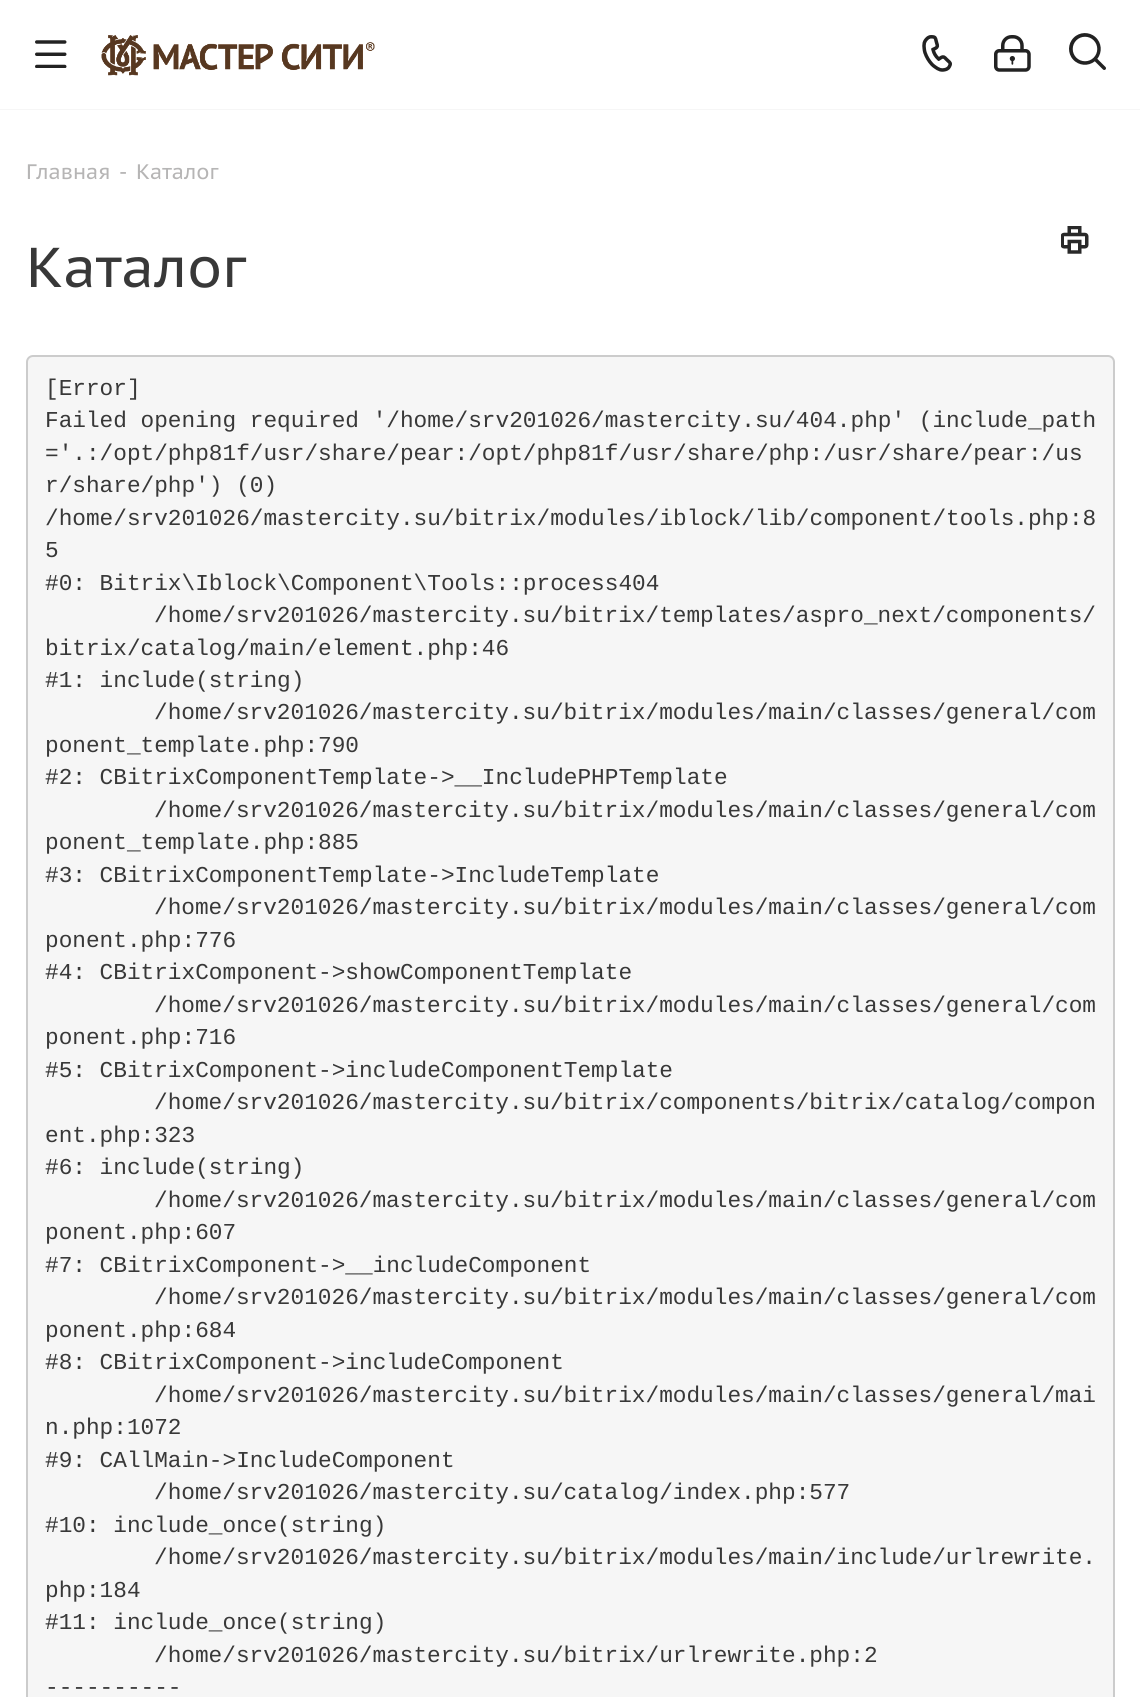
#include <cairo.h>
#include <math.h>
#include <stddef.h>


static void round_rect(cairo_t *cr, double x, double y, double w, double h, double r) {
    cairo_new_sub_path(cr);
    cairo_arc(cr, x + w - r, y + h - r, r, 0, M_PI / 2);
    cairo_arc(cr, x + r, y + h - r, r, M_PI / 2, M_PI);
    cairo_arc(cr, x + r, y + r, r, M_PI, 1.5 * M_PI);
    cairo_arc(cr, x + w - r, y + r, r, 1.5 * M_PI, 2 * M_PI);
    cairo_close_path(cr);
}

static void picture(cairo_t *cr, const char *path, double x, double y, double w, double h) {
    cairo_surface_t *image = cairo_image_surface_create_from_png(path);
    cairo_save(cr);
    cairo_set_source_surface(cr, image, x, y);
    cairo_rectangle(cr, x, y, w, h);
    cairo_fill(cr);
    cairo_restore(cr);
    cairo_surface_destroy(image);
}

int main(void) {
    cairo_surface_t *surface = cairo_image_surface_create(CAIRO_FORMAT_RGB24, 1140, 1697);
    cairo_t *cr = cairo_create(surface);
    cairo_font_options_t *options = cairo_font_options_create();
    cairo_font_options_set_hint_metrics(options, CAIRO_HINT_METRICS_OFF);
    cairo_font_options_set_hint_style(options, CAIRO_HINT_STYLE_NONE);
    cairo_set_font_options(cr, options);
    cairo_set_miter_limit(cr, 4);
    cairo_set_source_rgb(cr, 1, 1, 1);
    cairo_paint(cr);
    cairo_set_source_rgb(cr, 0.961, 0.961, 0.961);
    cairo_rectangle(cr, 0, 109, 1140, 1);
    cairo_fill(cr);
    picture(cr, "img1.png", 35, 40, 32, 28);
    picture(cr, "img2.png", 101, 35, 274, 41);
    picture(cr, "img3.png", 922, 35, 30, 37);
    picture(cr, "img4.png", 994, 35, 37, 37);
    picture(cr, "img5.png", 1069, 33, 37, 37);
    cairo_select_font_face(cr, "PT Sans Caption", CAIRO_FONT_SLANT_NORMAL, CAIRO_FONT_WEIGHT_NORMAL);
    cairo_set_font_size(cr, 21);
    cairo_set_source_rgb(cr, 0.714, 0.71, 0.71);
    cairo_move_to(cr, 26, 179);
    cairo_show_text(cr, "Главная");
    cairo_move_to(cr, 119, 179);
    cairo_show_text(cr, "-");
    cairo_move_to(cr, 136, 179);
    cairo_show_text(cr, "Каталог");
    picture(cr, "img6.png", 1061, 226, 28, 28);
    cairo_set_font_size(cr, 56);
    cairo_set_source_rgb(cr, 0.22, 0.22, 0.22);
    cairo_move_to(cr, 26, 287);
    cairo_show_text(cr, "Каталог");
    cairo_set_source_rgb(cr, 0.961, 0.961, 0.961);
    round_rect(cr, 27, 356, 1087, 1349, 6);
    cairo_fill_preserve(cr);
    cairo_set_source_rgb(cr, 0.8, 0.8, 0.8);
    cairo_stroke(cr);
    cairo_select_font_face(cr, "Liberation Mono", CAIRO_FONT_SLANT_NORMAL, CAIRO_FONT_WEIGHT_NORMAL);
    cairo_set_font_size(cr, 22.75);
    cairo_set_source_rgb(cr, 0.22, 0.22, 0.22);
    cairo_move_to(cr, 45, 395);
    cairo_show_text(cr, "[Error]");
    cairo_move_to(cr, 45, 427);
    cairo_show_text(cr, "Failed opening required '/home/srv201026/mastercity.su/404.php' (include_path");
    cairo_move_to(cr, 45, 460);
    cairo_show_text(cr, "='.:/opt/php81f/usr/share/pear:/opt/php81f/usr/share/php:/usr/share/pear:/us");
    cairo_move_to(cr, 45, 492);
    cairo_show_text(cr, "r/share/php') (0)");
    cairo_move_to(cr, 45, 525);
    cairo_show_text(cr, "/home/srv201026/mastercity.su/bitrix/modules/iblock/lib/component/tools.php:8");
    cairo_move_to(cr, 45, 557);
    cairo_show_text(cr, "5");
    cairo_move_to(cr, 45, 590);
    cairo_show_text(cr, "#0: Bitrix\\Iblock\\Component\\Tools::process404");
    cairo_move_to(cr, 154, 622);
    cairo_show_text(cr, "/home/srv201026/mastercity.su/bitrix/templates/aspro_next/components/");
    cairo_move_to(cr, 45, 655);
    cairo_show_text(cr, "bitrix/catalog/main/element.php:46");
    cairo_move_to(cr, 45, 687);
    cairo_show_text(cr, "#1: include(string)");
    cairo_move_to(cr, 154, 719);
    cairo_show_text(cr, "/home/srv201026/mastercity.su/bitrix/modules/main/classes/general/com");
    cairo_move_to(cr, 45, 752);
    cairo_show_text(cr, "ponent_template.php:790");
    cairo_move_to(cr, 45, 784);
    cairo_show_text(cr, "#2: CBitrixComponentTemplate->__IncludePHPTemplate");
    cairo_move_to(cr, 154, 817);
    cairo_show_text(cr, "/home/srv201026/mastercity.su/bitrix/modules/main/classes/general/com");
    cairo_move_to(cr, 45, 849);
    cairo_show_text(cr, "ponent_template.php:885");
    cairo_move_to(cr, 45, 882);
    cairo_show_text(cr, "#3: CBitrixComponentTemplate->IncludeTemplate");
    cairo_move_to(cr, 154, 914);
    cairo_show_text(cr, "/home/srv201026/mastercity.su/bitrix/modules/main/classes/general/com");
    cairo_move_to(cr, 45, 947);
    cairo_show_text(cr, "ponent.php:776");
    cairo_move_to(cr, 45, 979);
    cairo_show_text(cr, "#4: CBitrixComponent->showComponentTemplate");
    cairo_move_to(cr, 154, 1012);
    cairo_show_text(cr, "/home/srv201026/mastercity.su/bitrix/modules/main/classes/general/com");
    cairo_move_to(cr, 45, 1044);
    cairo_show_text(cr, "ponent.php:716");
    cairo_move_to(cr, 45, 1077);
    cairo_show_text(cr, "#5: CBitrixComponent->includeComponentTemplate");
    cairo_move_to(cr, 154, 1109);
    cairo_show_text(cr, "/home/srv201026/mastercity.su/bitrix/components/bitrix/catalog/compon");
    cairo_move_to(cr, 45, 1142);
    cairo_show_text(cr, "ent.php:323");
    cairo_move_to(cr, 45, 1174);
    cairo_show_text(cr, "#6: include(string)");
    cairo_move_to(cr, 154, 1207);
    cairo_show_text(cr, "/home/srv201026/mastercity.su/bitrix/modules/main/classes/general/com");
    cairo_move_to(cr, 45, 1239);
    cairo_show_text(cr, "ponent.php:607");
    cairo_move_to(cr, 45, 1272);
    cairo_show_text(cr, "#7: CBitrixComponent->__includeComponent");
    cairo_move_to(cr, 154, 1304);
    cairo_show_text(cr, "/home/srv201026/mastercity.su/bitrix/modules/main/classes/general/com");
    cairo_move_to(cr, 45, 1337);
    cairo_show_text(cr, "ponent.php:684");
    cairo_move_to(cr, 45, 1369);
    cairo_show_text(cr, "#8: CBitrixComponent->includeComponent");
    cairo_move_to(cr, 154, 1402);
    cairo_show_text(cr, "/home/srv201026/mastercity.su/bitrix/modules/main/classes/general/mai");
    cairo_move_to(cr, 45, 1434);
    cairo_show_text(cr, "n.php:1072");
    cairo_move_to(cr, 45, 1467);
    cairo_show_text(cr, "#9: CAllMain->IncludeComponent");
    cairo_move_to(cr, 154, 1499);
    cairo_show_text(cr, "/home/srv201026/mastercity.su/catalog/index.php:577");
    cairo_move_to(cr, 45, 1532);
    cairo_show_text(cr, "#10: include_once(string)");
    cairo_move_to(cr, 154, 1564);
    cairo_show_text(cr, "/home/srv201026/mastercity.su/bitrix/modules/main/include/urlrewrite.");
    cairo_move_to(cr, 45, 1597);
    cairo_show_text(cr, "php:184");
    cairo_move_to(cr, 45, 1629);
    cairo_show_text(cr, "#11: include_once(string)");
    cairo_move_to(cr, 154, 1662);
    cairo_show_text(cr, "/home/srv201026/mastercity.su/bitrix/urlrewrite.php:2");
    cairo_move_to(cr, 45, 1694);
    cairo_show_text(cr, "----------");
    cairo_surface_write_to_png(surface, "page.png");
    cairo_font_options_destroy(options);
    cairo_destroy(cr);
    cairo_surface_destroy(surface);
    return 0;
}
